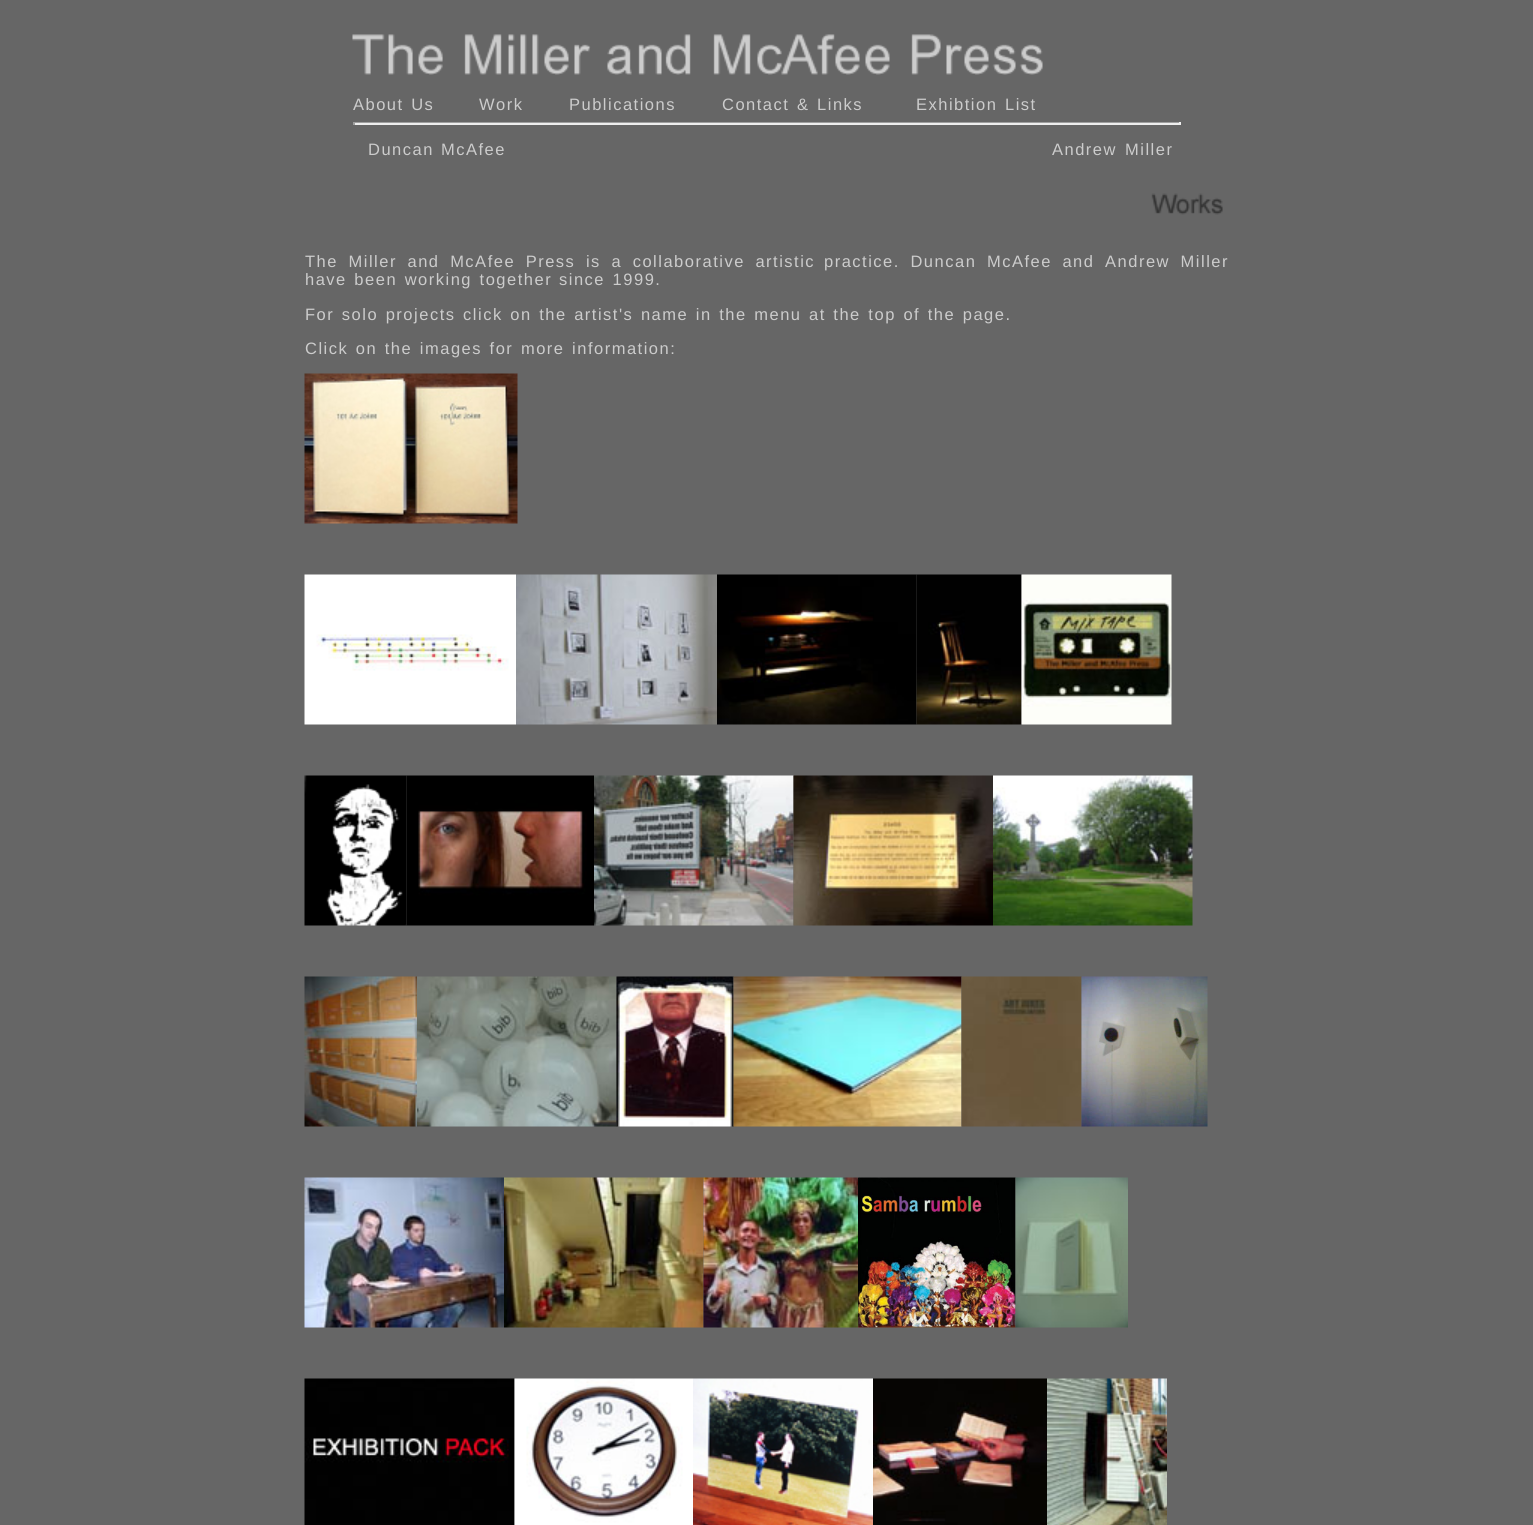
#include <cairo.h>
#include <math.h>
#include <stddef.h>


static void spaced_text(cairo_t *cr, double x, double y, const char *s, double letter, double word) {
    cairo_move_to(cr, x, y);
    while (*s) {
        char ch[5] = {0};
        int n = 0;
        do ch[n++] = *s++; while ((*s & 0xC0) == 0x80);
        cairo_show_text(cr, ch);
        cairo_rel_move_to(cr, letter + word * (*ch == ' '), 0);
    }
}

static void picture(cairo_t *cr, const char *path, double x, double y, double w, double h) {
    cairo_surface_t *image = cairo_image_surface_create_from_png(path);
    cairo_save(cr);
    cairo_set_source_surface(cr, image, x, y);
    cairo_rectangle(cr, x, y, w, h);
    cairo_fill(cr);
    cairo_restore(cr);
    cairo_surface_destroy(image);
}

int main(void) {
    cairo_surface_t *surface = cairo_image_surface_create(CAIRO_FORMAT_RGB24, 1533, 1525);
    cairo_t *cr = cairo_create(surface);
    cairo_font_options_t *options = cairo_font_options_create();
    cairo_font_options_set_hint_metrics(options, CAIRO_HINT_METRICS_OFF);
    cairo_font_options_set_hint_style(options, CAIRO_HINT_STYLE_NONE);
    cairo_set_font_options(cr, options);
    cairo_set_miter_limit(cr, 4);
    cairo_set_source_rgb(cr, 0.4, 0.4, 0.4);
    cairo_paint(cr);
    picture(cr, "img1.png", 352, 34, 691, 41);
    cairo_select_font_face(cr, "Liberation Sans", CAIRO_FONT_SLANT_NORMAL, CAIRO_FONT_WEIGHT_NORMAL);
    cairo_set_font_size(cr, 16.5);
    cairo_set_source_rgb(cr, 0.8, 0.8, 0.8);
    spaced_text(cr, 353, 110, "About Us", 1.5, 1.5);
    spaced_text(cr, 479, 110, "Work", 1.5, 0);
    spaced_text(cr, 569, 110, "Publications", 1.5, 0);
    spaced_text(cr, 722, 110, "Contact", 1.5, 0);
    spaced_text(cr, 797, 110, "& Links", 1.5, 1.5);
    spaced_text(cr, 916, 110, "Exhibtion", 1.5, 0);
    spaced_text(cr, 1005, 110, "List", 1.5, 0);
    cairo_set_source_rgb(cr, 0.624, 0.624, 0.624);
    cairo_rectangle(cr, 353, 122, 828, 1);
    cairo_fill(cr);
    cairo_set_source_rgb(cr, 0.933, 0.933, 0.933);
    cairo_rectangle(cr, 1179, 122, 2, 3);
    cairo_fill(cr);
    cairo_rectangle(cr, 353, 123, 828, 2);
    cairo_fill(cr);
    cairo_set_source_rgb(cr, 0.624, 0.624, 0.624);
    cairo_rectangle(cr, 353, 122, 2, 3);
    cairo_fill(cr);
    cairo_set_source_rgb(cr, 0.8, 0.8, 0.8);
    spaced_text(cr, 368, 155, "Duncan", 1.5, 0);
    spaced_text(cr, 441, 155, "McAfee", 1.5, 0);
    spaced_text(cr, 1052, 155, "Andrew", 1.5, 0);
    spaced_text(cr, 1125, 155, "Miller", 1.5, 0);
    picture(cr, "img2.png", 1151, 193, 72, 22);
    spaced_text(cr, 305, 267, "The Miller and McAfee Press is a collaborative artistic", 1.5, 4.5);
    spaced_text(cr, 824, 267, "practice. Duncan McAfee and Andrew Miller", 1.5, 4.5);
    spaced_text(cr, 305, 285, "have been working together", 1.5, 1.5);
    spaced_text(cr, 559, 285, "since 1999.", 1.5, 1.5);
    spaced_text(cr, 305, 320, "For solo projects click on the artist's name in the menu", 1.5, 1.5);
    spaced_text(cr, 809, 320, "at the top of the page.", 1.5, 1.5);
    spaced_text(cr, 305, 354, "Click on the images for more information:", 1.5, 1.5);
    picture(cr, "img3.png", 304, 373, 214, 151);
    picture(cr, "img4.png", 304, 574, 212, 151);
    picture(cr, "img5.png", 516, 574, 201, 151);
    picture(cr, "img6.png", 717, 574, 200, 151);
    picture(cr, "img7.png", 916, 574, 106, 151);
    picture(cr, "img8.png", 1021, 574, 151, 151);
    picture(cr, "img9.png", 304, 775, 103, 151);
    picture(cr, "img10.png", 406, 775, 188, 151);
    picture(cr, "img11.png", 594, 775, 200, 151);
    picture(cr, "img12.png", 793, 775, 200, 151);
    picture(cr, "img13.png", 993, 775, 200, 151);
    picture(cr, "img14.png", 304, 976, 113, 151);
    picture(cr, "img15.png", 417, 976, 200, 151);
    picture(cr, "img16.png", 616, 976, 118, 151);
    picture(cr, "img17.png", 733, 976, 229, 151);
    picture(cr, "img18.png", 961, 976, 121, 151);
    picture(cr, "img19.png", 1081, 976, 127, 151);
    picture(cr, "img20.png", 304, 1177, 200, 151);
    picture(cr, "img21.png", 504, 1177, 200, 151);
    picture(cr, "img22.png", 703, 1177, 155, 151);
    picture(cr, "img23.png", 858, 1177, 158, 151);
    picture(cr, "img24.png", 1015, 1177, 113, 151);
    picture(cr, "img25.png", 304, 1378, 211, 147);
    picture(cr, "img26.png", 514, 1378, 179, 147);
    picture(cr, "img27.png", 693, 1378, 180, 147);
    picture(cr, "img28.png", 873, 1378, 174, 147);
    picture(cr, "img29.png", 1047, 1378, 120, 147);
    cairo_surface_write_to_png(surface, "page.png");
    cairo_font_options_destroy(options);
    cairo_destroy(cr);
    cairo_surface_destroy(surface);
    return 0;
}
